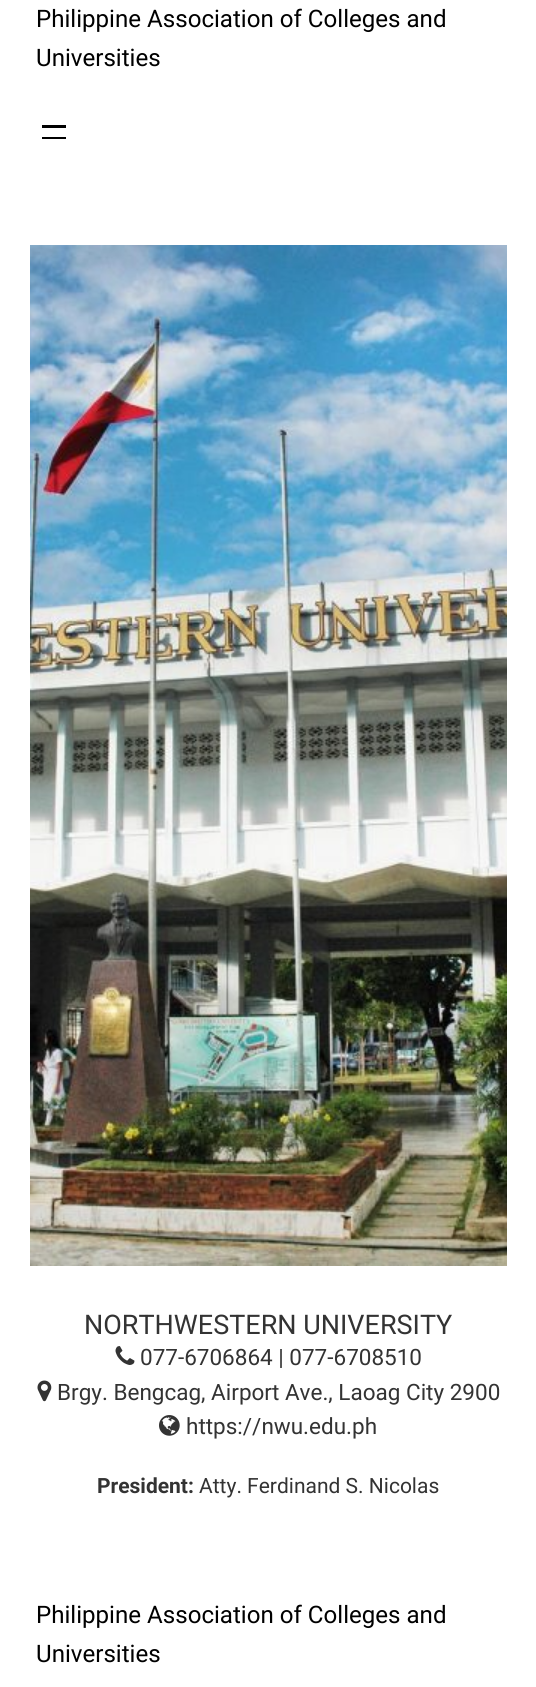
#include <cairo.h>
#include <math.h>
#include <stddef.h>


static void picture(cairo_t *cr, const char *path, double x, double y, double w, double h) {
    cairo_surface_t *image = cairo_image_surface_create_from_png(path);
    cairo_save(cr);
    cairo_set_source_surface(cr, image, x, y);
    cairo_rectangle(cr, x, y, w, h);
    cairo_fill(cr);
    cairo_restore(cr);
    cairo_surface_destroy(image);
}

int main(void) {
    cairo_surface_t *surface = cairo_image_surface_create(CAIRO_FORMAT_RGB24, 536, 1687);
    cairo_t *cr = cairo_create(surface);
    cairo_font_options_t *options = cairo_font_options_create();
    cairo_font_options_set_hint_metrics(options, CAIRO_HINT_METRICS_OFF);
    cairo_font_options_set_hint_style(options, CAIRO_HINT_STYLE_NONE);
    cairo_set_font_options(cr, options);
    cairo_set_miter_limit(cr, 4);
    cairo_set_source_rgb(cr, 1, 1, 1);
    cairo_paint(cr);
    cairo_select_font_face(cr, "Roboto", CAIRO_FONT_SLANT_NORMAL, CAIRO_FONT_WEIGHT_NORMAL);
    cairo_set_font_size(cr, 24.1);
    cairo_set_source_rgb(cr, 0, 0, 0);
    cairo_move_to(cr, 36, 27);
    cairo_show_text(cr, "Philippine Association of Colleges and");
    cairo_move_to(cr, 36, 66);
    cairo_show_text(cr, "Universities");
    cairo_rectangle(cr, 42, 125, 24, 3);
    cairo_fill(cr);
    cairo_rectangle(cr, 42, 137, 24, 2);
    cairo_fill(cr);
    picture(cr, "img1.png", 30, 245, 477, 1021);
    cairo_set_font_size(cr, 27);
    cairo_set_source_rgb(cr, 0.2, 0.2, 0.2);
    cairo_move_to(cr, 84, 1334);
    cairo_show_text(cr, "NORTHWESTERN UNIVERSITY");
    picture(cr, "img2.png", 115, 1346, 20, 19);
    cairo_set_font_size(cr, 22.5);
    cairo_move_to(cr, 140, 1365);
    cairo_show_text(cr, "077-6706864 | 077-6708510");
    picture(cr, "img3.png", 37, 1380, 15, 22);
    cairo_move_to(cr, 57, 1400);
    cairo_show_text(cr, "Brgy. Bengcag, Airport Ave., Laoag City 2900");
    picture(cr, "img4.png", 159, 1415, 21, 21);
    cairo_move_to(cr, 186, 1434);
    cairo_show_text(cr, "https://nwu.edu.ph");
    cairo_select_font_face(cr, "Roboto", CAIRO_FONT_SLANT_NORMAL, CAIRO_FONT_WEIGHT_BOLD);
    cairo_set_font_size(cr, 21);
    cairo_move_to(cr, 97, 1493);
    cairo_show_text(cr, "President:");
    cairo_select_font_face(cr, "Roboto", CAIRO_FONT_SLANT_NORMAL, CAIRO_FONT_WEIGHT_NORMAL);
    cairo_move_to(cr, 199, 1493);
    cairo_show_text(cr, "Atty. Ferdinand S. Nicolas");
    cairo_set_font_size(cr, 24.1);
    cairo_set_source_rgb(cr, 0, 0, 0);
    cairo_move_to(cr, 36, 1623);
    cairo_show_text(cr, "Philippine Association of Colleges and");
    cairo_move_to(cr, 36, 1662);
    cairo_show_text(cr, "Universities");
    cairo_surface_write_to_png(surface, "page.png");
    cairo_font_options_destroy(options);
    cairo_destroy(cr);
    cairo_surface_destroy(surface);
    return 0;
}
